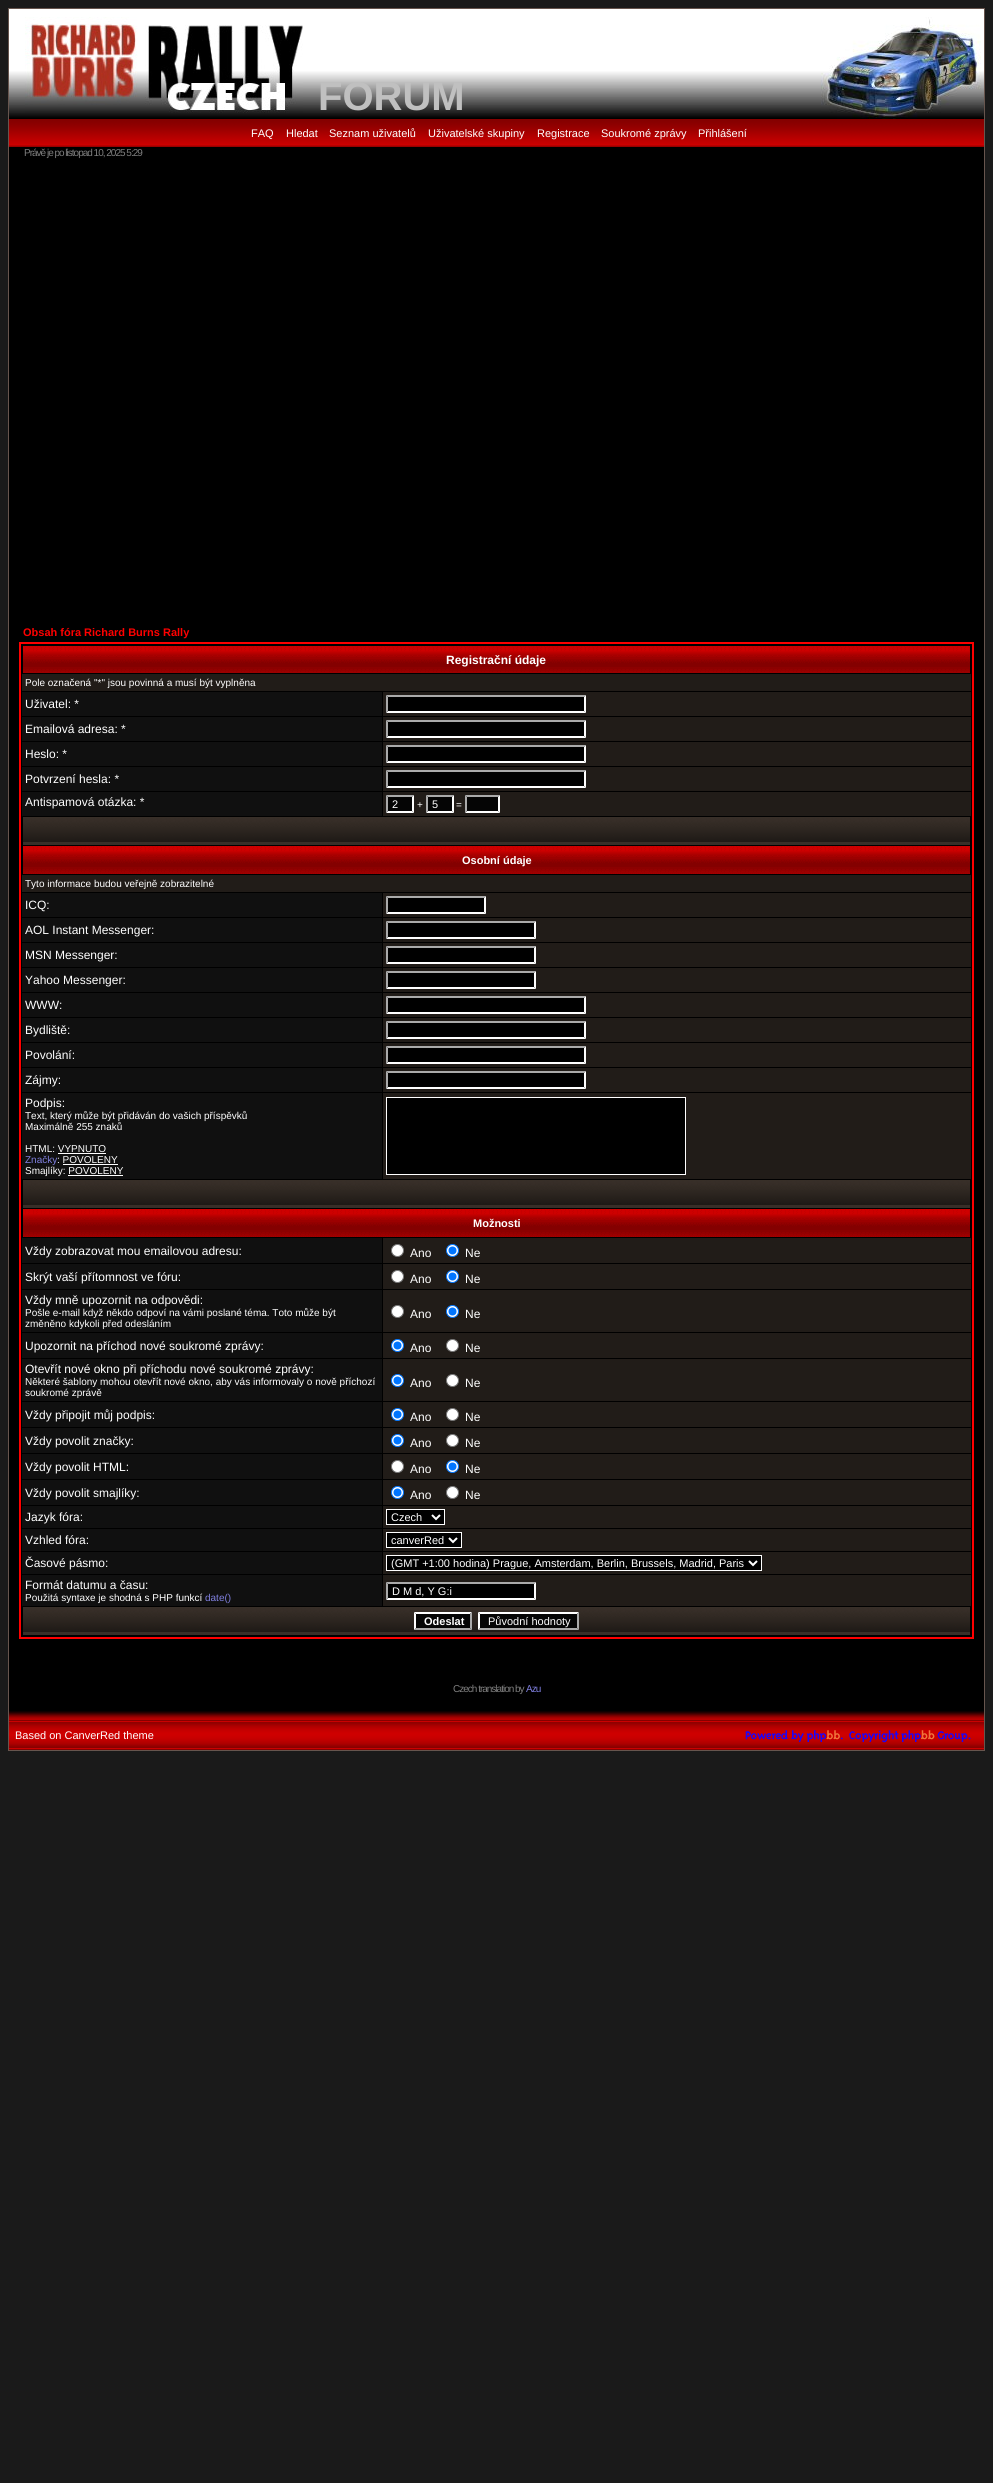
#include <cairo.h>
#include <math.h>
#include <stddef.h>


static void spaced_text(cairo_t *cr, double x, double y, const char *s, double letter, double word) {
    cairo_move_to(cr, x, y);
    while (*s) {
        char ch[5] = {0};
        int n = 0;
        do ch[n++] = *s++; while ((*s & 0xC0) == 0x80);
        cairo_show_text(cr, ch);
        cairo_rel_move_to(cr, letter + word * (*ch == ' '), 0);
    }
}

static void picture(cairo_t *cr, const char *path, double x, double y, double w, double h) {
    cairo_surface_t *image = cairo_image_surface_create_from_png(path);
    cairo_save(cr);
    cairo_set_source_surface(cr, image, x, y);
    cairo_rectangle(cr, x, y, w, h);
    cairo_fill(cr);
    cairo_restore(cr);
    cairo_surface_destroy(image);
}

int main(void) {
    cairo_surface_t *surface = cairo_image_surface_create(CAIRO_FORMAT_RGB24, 993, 2483);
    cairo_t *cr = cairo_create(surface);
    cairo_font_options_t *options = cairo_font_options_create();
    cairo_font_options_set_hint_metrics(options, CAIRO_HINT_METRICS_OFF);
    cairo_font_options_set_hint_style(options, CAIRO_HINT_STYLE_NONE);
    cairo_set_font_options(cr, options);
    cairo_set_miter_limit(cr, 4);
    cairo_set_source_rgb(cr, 0.102, 0.102, 0.102);
    cairo_paint(cr);
    cairo_set_source_rgb(cr, 0, 0, 0);
    cairo_rectangle(cr, 9, 147, 975, 1564);
    cairo_fill(cr);
    cairo_rectangle(cr, 8.5, 8.5, 976, 1742);
    cairo_set_source_rgb(cr, 0.404, 0.333, 0.306);
    cairo_set_line_width(cr, 1);
    cairo_stroke(cr);
    picture(cr, "img1.png", 9, 9, 975, 110);
    picture(cr, "img2.png", 25, 17, 278, 96);
    cairo_select_font_face(cr, "Liberation Sans", CAIRO_FONT_SLANT_NORMAL, CAIRO_FONT_WEIGHT_BOLD);
    cairo_set_font_size(cr, 40);
    cairo_set_source_rgb(cr, 0.753, 0.753, 0.753);
    cairo_move_to(cr, 318, 110);
    cairo_show_text(cr, "FORUM");
    picture(cr, "img3.png", 821, 17, 160, 102);
    picture(cr, "img4.png", 9, 119, 975, 28);
    cairo_select_font_face(cr, "Liberation Sans", CAIRO_FONT_SLANT_NORMAL, CAIRO_FONT_WEIGHT_NORMAL);
    cairo_set_font_size(cr, 11);
    cairo_set_source_rgb(cr, 1, 1, 1);
    cairo_move_to(cr, 251, 137);
    cairo_show_text(cr, "FAQ");
    cairo_move_to(cr, 286, 137);
    cairo_show_text(cr, "Hledat");
    cairo_move_to(cr, 329, 137);
    cairo_show_text(cr, "Seznam uživatelů");
    cairo_move_to(cr, 428, 137);
    cairo_show_text(cr, "Uživatelské skupiny");
    cairo_move_to(cr, 537, 137);
    cairo_show_text(cr, "Registrace");
    cairo_move_to(cr, 601, 137);
    cairo_show_text(cr, "Soukromé zprávy");
    cairo_move_to(cr, 698, 137);
    cairo_show_text(cr, "Přihlášení");
    cairo_set_font_size(cr, 10);
    cairo_set_source_rgb(cr, 0.502, 0.502, 0.502);
    spaced_text(cr, 24, 156, "Právě je po listopad 10, 2025 5:29", -1, 0);
    cairo_select_font_face(cr, "Liberation Sans", CAIRO_FONT_SLANT_NORMAL, CAIRO_FONT_WEIGHT_BOLD);
    cairo_set_font_size(cr, 11);
    cairo_set_source_rgb(cr, 1, 0, 0);
    cairo_move_to(cr, 23, 636);
    cairo_show_text(cr, "Obsah fóra Richard Burns Rally");
    cairo_rectangle(cr, 20, 643, 953, 995);
    cairo_set_line_width(cr, 2);
    cairo_stroke(cr);
    picture(cr, "img5.png", 23, 646, 947, 27);
    cairo_set_font_size(cr, 12);
    cairo_set_source_rgb(cr, 1, 1, 1);
    cairo_move_to(cr, 446, 664);
    cairo_show_text(cr, "Registrační údaje");
    cairo_set_source_rgb(cr, 0.129, 0.11, 0.094);
    cairo_rectangle(cr, 22, 674, 949, 17);
    cairo_fill(cr);
    cairo_select_font_face(cr, "Liberation Sans", CAIRO_FONT_SLANT_NORMAL, CAIRO_FONT_WEIGHT_NORMAL);
    cairo_set_font_size(cr, 10);
    cairo_set_source_rgb(cr, 1, 1, 1);
    cairo_move_to(cr, 25, 686);
    cairo_show_text(cr, "Pole označená \"*\" jsou povinná a musí být vyplněna");
    cairo_set_source_rgb(cr, 0.063, 0.063, 0.063);
    cairo_rectangle(cr, 22, 692, 360, 24);
    cairo_fill(cr);
    cairo_set_font_size(cr, 12);
    cairo_set_source_rgb(cr, 1, 1, 1);
    cairo_move_to(cr, 25, 708);
    cairo_show_text(cr, "Uživatel: *");
    cairo_set_source_rgb(cr, 0.129, 0.11, 0.094);
    cairo_rectangle(cr, 383, 692, 588, 24);
    cairo_fill(cr);
    cairo_set_source_rgb(cr, 0, 0, 0);
    cairo_rectangle(cr, 386, 695, 200, 18);
    cairo_fill(cr);
    cairo_set_source_rgb(cr, 0.667, 0.667, 0.667);
    cairo_new_path(cr);
    cairo_move_to(cr, 386, 695);
    cairo_line_to(cr, 586, 695);
    cairo_line_to(cr, 584, 697);
    cairo_line_to(cr, 388, 697);
    cairo_close_path(cr);
    cairo_fill(cr);
    cairo_set_source_rgb(cr, 1, 1, 1);
    cairo_new_path(cr);
    cairo_move_to(cr, 586, 695);
    cairo_line_to(cr, 586, 713);
    cairo_line_to(cr, 584, 711);
    cairo_line_to(cr, 584, 697);
    cairo_close_path(cr);
    cairo_fill(cr);
    cairo_new_path(cr);
    cairo_move_to(cr, 586, 713);
    cairo_line_to(cr, 386, 713);
    cairo_line_to(cr, 388, 711);
    cairo_line_to(cr, 584, 711);
    cairo_close_path(cr);
    cairo_fill(cr);
    cairo_set_source_rgb(cr, 0.667, 0.667, 0.667);
    cairo_new_path(cr);
    cairo_move_to(cr, 386, 713);
    cairo_line_to(cr, 386, 695);
    cairo_line_to(cr, 388, 697);
    cairo_line_to(cr, 388, 711);
    cairo_close_path(cr);
    cairo_fill(cr);
    cairo_set_source_rgb(cr, 0.063, 0.063, 0.063);
    cairo_rectangle(cr, 22, 717, 360, 24);
    cairo_fill(cr);
    cairo_set_source_rgb(cr, 1, 1, 1);
    cairo_move_to(cr, 25, 733);
    cairo_show_text(cr, "Emailová adresa: *");
    cairo_set_source_rgb(cr, 0.129, 0.11, 0.094);
    cairo_rectangle(cr, 383, 717, 588, 24);
    cairo_fill(cr);
    cairo_set_source_rgb(cr, 0, 0, 0);
    cairo_rectangle(cr, 386, 720, 200, 18);
    cairo_fill(cr);
    cairo_set_source_rgb(cr, 0.667, 0.667, 0.667);
    cairo_new_path(cr);
    cairo_move_to(cr, 386, 720);
    cairo_line_to(cr, 586, 720);
    cairo_line_to(cr, 584, 722);
    cairo_line_to(cr, 388, 722);
    cairo_close_path(cr);
    cairo_fill(cr);
    cairo_set_source_rgb(cr, 1, 1, 1);
    cairo_new_path(cr);
    cairo_move_to(cr, 586, 720);
    cairo_line_to(cr, 586, 738);
    cairo_line_to(cr, 584, 736);
    cairo_line_to(cr, 584, 722);
    cairo_close_path(cr);
    cairo_fill(cr);
    cairo_new_path(cr);
    cairo_move_to(cr, 586, 738);
    cairo_line_to(cr, 386, 738);
    cairo_line_to(cr, 388, 736);
    cairo_line_to(cr, 584, 736);
    cairo_close_path(cr);
    cairo_fill(cr);
    cairo_set_source_rgb(cr, 0.667, 0.667, 0.667);
    cairo_new_path(cr);
    cairo_move_to(cr, 386, 738);
    cairo_line_to(cr, 386, 720);
    cairo_line_to(cr, 388, 722);
    cairo_line_to(cr, 388, 736);
    cairo_close_path(cr);
    cairo_fill(cr);
    cairo_set_source_rgb(cr, 0.063, 0.063, 0.063);
    cairo_rectangle(cr, 22, 742, 360, 24);
    cairo_fill(cr);
    cairo_set_source_rgb(cr, 1, 1, 1);
    cairo_move_to(cr, 25, 758);
    cairo_show_text(cr, "Heslo: *");
    cairo_set_source_rgb(cr, 0.129, 0.11, 0.094);
    cairo_rectangle(cr, 383, 742, 588, 24);
    cairo_fill(cr);
    cairo_set_source_rgb(cr, 0, 0, 0);
    cairo_rectangle(cr, 386, 745, 200, 18);
    cairo_fill(cr);
    cairo_set_source_rgb(cr, 0.667, 0.667, 0.667);
    cairo_new_path(cr);
    cairo_move_to(cr, 386, 745);
    cairo_line_to(cr, 586, 745);
    cairo_line_to(cr, 584, 747);
    cairo_line_to(cr, 388, 747);
    cairo_close_path(cr);
    cairo_fill(cr);
    cairo_set_source_rgb(cr, 1, 1, 1);
    cairo_new_path(cr);
    cairo_move_to(cr, 586, 745);
    cairo_line_to(cr, 586, 763);
    cairo_line_to(cr, 584, 761);
    cairo_line_to(cr, 584, 747);
    cairo_close_path(cr);
    cairo_fill(cr);
    cairo_new_path(cr);
    cairo_move_to(cr, 586, 763);
    cairo_line_to(cr, 386, 763);
    cairo_line_to(cr, 388, 761);
    cairo_line_to(cr, 584, 761);
    cairo_close_path(cr);
    cairo_fill(cr);
    cairo_set_source_rgb(cr, 0.667, 0.667, 0.667);
    cairo_new_path(cr);
    cairo_move_to(cr, 386, 763);
    cairo_line_to(cr, 386, 745);
    cairo_line_to(cr, 388, 747);
    cairo_line_to(cr, 388, 761);
    cairo_close_path(cr);
    cairo_fill(cr);
    cairo_set_source_rgb(cr, 0.063, 0.063, 0.063);
    cairo_rectangle(cr, 22, 767, 360, 24);
    cairo_fill(cr);
    cairo_set_source_rgb(cr, 1, 1, 1);
    cairo_move_to(cr, 25, 783);
    cairo_show_text(cr, "Potvrzení hesla: *");
    cairo_set_source_rgb(cr, 0.129, 0.11, 0.094);
    cairo_rectangle(cr, 383, 767, 588, 24);
    cairo_fill(cr);
    cairo_set_source_rgb(cr, 0, 0, 0);
    cairo_rectangle(cr, 386, 770, 200, 18);
    cairo_fill(cr);
    cairo_set_source_rgb(cr, 0.667, 0.667, 0.667);
    cairo_new_path(cr);
    cairo_move_to(cr, 386, 770);
    cairo_line_to(cr, 586, 770);
    cairo_line_to(cr, 584, 772);
    cairo_line_to(cr, 388, 772);
    cairo_close_path(cr);
    cairo_fill(cr);
    cairo_set_source_rgb(cr, 1, 1, 1);
    cairo_new_path(cr);
    cairo_move_to(cr, 586, 770);
    cairo_line_to(cr, 586, 788);
    cairo_line_to(cr, 584, 786);
    cairo_line_to(cr, 584, 772);
    cairo_close_path(cr);
    cairo_fill(cr);
    cairo_new_path(cr);
    cairo_move_to(cr, 586, 788);
    cairo_line_to(cr, 386, 788);
    cairo_line_to(cr, 388, 786);
    cairo_line_to(cr, 584, 786);
    cairo_close_path(cr);
    cairo_fill(cr);
    cairo_set_source_rgb(cr, 0.667, 0.667, 0.667);
    cairo_new_path(cr);
    cairo_move_to(cr, 386, 788);
    cairo_line_to(cr, 386, 770);
    cairo_line_to(cr, 388, 772);
    cairo_line_to(cr, 388, 786);
    cairo_close_path(cr);
    cairo_fill(cr);
    cairo_set_source_rgb(cr, 0.063, 0.063, 0.063);
    cairo_rectangle(cr, 22, 792, 360, 24);
    cairo_fill(cr);
    cairo_set_source_rgb(cr, 1, 1, 1);
    cairo_move_to(cr, 25, 806);
    cairo_show_text(cr, "Antispamová otázka: *");
    cairo_set_source_rgb(cr, 0.129, 0.11, 0.094);
    cairo_rectangle(cr, 383, 792, 588, 24);
    cairo_fill(cr);
    cairo_set_source_rgb(cr, 0.02, 0.02, 0.02);
    cairo_rectangle(cr, 386, 795, 28, 18);
    cairo_fill(cr);
    cairo_set_source_rgb(cr, 0.667, 0.667, 0.667);
    cairo_new_path(cr);
    cairo_move_to(cr, 386, 795);
    cairo_line_to(cr, 414, 795);
    cairo_line_to(cr, 412, 797);
    cairo_line_to(cr, 388, 797);
    cairo_close_path(cr);
    cairo_fill(cr);
    cairo_set_source_rgb(cr, 1, 1, 1);
    cairo_new_path(cr);
    cairo_move_to(cr, 414, 795);
    cairo_line_to(cr, 414, 813);
    cairo_line_to(cr, 412, 811);
    cairo_line_to(cr, 412, 797);
    cairo_close_path(cr);
    cairo_fill(cr);
    cairo_new_path(cr);
    cairo_move_to(cr, 414, 813);
    cairo_line_to(cr, 386, 813);
    cairo_line_to(cr, 388, 811);
    cairo_line_to(cr, 412, 811);
    cairo_close_path(cr);
    cairo_fill(cr);
    cairo_set_source_rgb(cr, 0.667, 0.667, 0.667);
    cairo_new_path(cr);
    cairo_move_to(cr, 386, 813);
    cairo_line_to(cr, 386, 795);
    cairo_line_to(cr, 388, 797);
    cairo_line_to(cr, 388, 811);
    cairo_close_path(cr);
    cairo_fill(cr);
    cairo_set_font_size(cr, 11);
    cairo_set_source_rgb(cr, 1, 1, 1);
    cairo_move_to(cr, 392, 808);
    cairo_show_text(cr, "2");
    cairo_set_font_size(cr, 10);
    cairo_move_to(cr, 417, 808);
    cairo_show_text(cr, "+");
    cairo_set_source_rgb(cr, 0.02, 0.02, 0.02);
    cairo_rectangle(cr, 426, 795, 28, 18);
    cairo_fill(cr);
    cairo_set_source_rgb(cr, 0.667, 0.667, 0.667);
    cairo_new_path(cr);
    cairo_move_to(cr, 426, 795);
    cairo_line_to(cr, 454, 795);
    cairo_line_to(cr, 452, 797);
    cairo_line_to(cr, 428, 797);
    cairo_close_path(cr);
    cairo_fill(cr);
    cairo_set_source_rgb(cr, 1, 1, 1);
    cairo_new_path(cr);
    cairo_move_to(cr, 454, 795);
    cairo_line_to(cr, 454, 813);
    cairo_line_to(cr, 452, 811);
    cairo_line_to(cr, 452, 797);
    cairo_close_path(cr);
    cairo_fill(cr);
    cairo_new_path(cr);
    cairo_move_to(cr, 454, 813);
    cairo_line_to(cr, 426, 813);
    cairo_line_to(cr, 428, 811);
    cairo_line_to(cr, 452, 811);
    cairo_close_path(cr);
    cairo_fill(cr);
    cairo_set_source_rgb(cr, 0.667, 0.667, 0.667);
    cairo_new_path(cr);
    cairo_move_to(cr, 426, 813);
    cairo_line_to(cr, 426, 795);
    cairo_line_to(cr, 428, 797);
    cairo_line_to(cr, 428, 811);
    cairo_close_path(cr);
    cairo_fill(cr);
    cairo_set_font_size(cr, 11);
    cairo_set_source_rgb(cr, 1, 1, 1);
    cairo_move_to(cr, 432, 808);
    cairo_show_text(cr, "5");
    cairo_set_font_size(cr, 10);
    cairo_move_to(cr, 456, 808);
    cairo_show_text(cr, "=");
    cairo_set_source_rgb(cr, 0.02, 0.02, 0.02);
    cairo_rectangle(cr, 465, 795, 35, 18);
    cairo_fill(cr);
    cairo_set_source_rgb(cr, 0.667, 0.667, 0.667);
    cairo_new_path(cr);
    cairo_move_to(cr, 465, 795);
    cairo_line_to(cr, 500, 795);
    cairo_line_to(cr, 498, 797);
    cairo_line_to(cr, 467, 797);
    cairo_close_path(cr);
    cairo_fill(cr);
    cairo_set_source_rgb(cr, 1, 1, 1);
    cairo_new_path(cr);
    cairo_move_to(cr, 500, 795);
    cairo_line_to(cr, 500, 813);
    cairo_line_to(cr, 498, 811);
    cairo_line_to(cr, 498, 797);
    cairo_close_path(cr);
    cairo_fill(cr);
    cairo_new_path(cr);
    cairo_move_to(cr, 500, 813);
    cairo_line_to(cr, 465, 813);
    cairo_line_to(cr, 467, 811);
    cairo_line_to(cr, 498, 811);
    cairo_close_path(cr);
    cairo_fill(cr);
    cairo_set_source_rgb(cr, 0.667, 0.667, 0.667);
    cairo_new_path(cr);
    cairo_move_to(cr, 465, 813);
    cairo_line_to(cr, 465, 795);
    cairo_line_to(cr, 467, 797);
    cairo_line_to(cr, 467, 811);
    cairo_close_path(cr);
    cairo_fill(cr);
    picture(cr, "img6.png", 23, 817, 947, 28);
    picture(cr, "img7.png", 23, 846, 947, 28);
    cairo_select_font_face(cr, "Liberation Sans", CAIRO_FONT_SLANT_NORMAL, CAIRO_FONT_WEIGHT_BOLD);
    cairo_set_font_size(cr, 11);
    cairo_set_source_rgb(cr, 1, 1, 1);
    cairo_move_to(cr, 462, 864);
    cairo_show_text(cr, "Osobní údaje");
    cairo_set_source_rgb(cr, 0.129, 0.11, 0.094);
    cairo_rectangle(cr, 22, 875, 949, 17);
    cairo_fill(cr);
    cairo_select_font_face(cr, "Liberation Sans", CAIRO_FONT_SLANT_NORMAL, CAIRO_FONT_WEIGHT_NORMAL);
    cairo_set_font_size(cr, 10);
    cairo_set_source_rgb(cr, 1, 1, 1);
    cairo_move_to(cr, 25, 887);
    cairo_show_text(cr, "Tyto informace budou veřejně zobrazitelné");
    cairo_set_source_rgb(cr, 0.063, 0.063, 0.063);
    cairo_rectangle(cr, 22, 893, 360, 24);
    cairo_fill(cr);
    cairo_set_font_size(cr, 12);
    cairo_set_source_rgb(cr, 1, 1, 1);
    cairo_move_to(cr, 25, 909);
    cairo_show_text(cr, "ICQ:");
    cairo_set_source_rgb(cr, 0.129, 0.11, 0.094);
    cairo_rectangle(cr, 383, 893, 588, 24);
    cairo_fill(cr);
    cairo_set_source_rgb(cr, 0, 0, 0);
    cairo_rectangle(cr, 386, 896, 100, 18);
    cairo_fill(cr);
    cairo_set_source_rgb(cr, 0.667, 0.667, 0.667);
    cairo_new_path(cr);
    cairo_move_to(cr, 386, 896);
    cairo_line_to(cr, 486, 896);
    cairo_line_to(cr, 484, 898);
    cairo_line_to(cr, 388, 898);
    cairo_close_path(cr);
    cairo_fill(cr);
    cairo_set_source_rgb(cr, 1, 1, 1);
    cairo_new_path(cr);
    cairo_move_to(cr, 486, 896);
    cairo_line_to(cr, 486, 914);
    cairo_line_to(cr, 484, 912);
    cairo_line_to(cr, 484, 898);
    cairo_close_path(cr);
    cairo_fill(cr);
    cairo_new_path(cr);
    cairo_move_to(cr, 486, 914);
    cairo_line_to(cr, 386, 914);
    cairo_line_to(cr, 388, 912);
    cairo_line_to(cr, 484, 912);
    cairo_close_path(cr);
    cairo_fill(cr);
    cairo_set_source_rgb(cr, 0.667, 0.667, 0.667);
    cairo_new_path(cr);
    cairo_move_to(cr, 386, 914);
    cairo_line_to(cr, 386, 896);
    cairo_line_to(cr, 388, 898);
    cairo_line_to(cr, 388, 912);
    cairo_close_path(cr);
    cairo_fill(cr);
    cairo_set_source_rgb(cr, 0.063, 0.063, 0.063);
    cairo_rectangle(cr, 22, 918, 360, 24);
    cairo_fill(cr);
    cairo_set_source_rgb(cr, 1, 1, 1);
    cairo_move_to(cr, 25, 934);
    cairo_show_text(cr, "AOL Instant Messenger:");
    cairo_set_source_rgb(cr, 0.129, 0.11, 0.094);
    cairo_rectangle(cr, 383, 918, 588, 24);
    cairo_fill(cr);
    cairo_set_source_rgb(cr, 0, 0, 0);
    cairo_rectangle(cr, 386, 921, 150, 18);
    cairo_fill(cr);
    cairo_set_source_rgb(cr, 0.667, 0.667, 0.667);
    cairo_new_path(cr);
    cairo_move_to(cr, 386, 921);
    cairo_line_to(cr, 536, 921);
    cairo_line_to(cr, 534, 923);
    cairo_line_to(cr, 388, 923);
    cairo_close_path(cr);
    cairo_fill(cr);
    cairo_set_source_rgb(cr, 1, 1, 1);
    cairo_new_path(cr);
    cairo_move_to(cr, 536, 921);
    cairo_line_to(cr, 536, 939);
    cairo_line_to(cr, 534, 937);
    cairo_line_to(cr, 534, 923);
    cairo_close_path(cr);
    cairo_fill(cr);
    cairo_new_path(cr);
    cairo_move_to(cr, 536, 939);
    cairo_line_to(cr, 386, 939);
    cairo_line_to(cr, 388, 937);
    cairo_line_to(cr, 534, 937);
    cairo_close_path(cr);
    cairo_fill(cr);
    cairo_set_source_rgb(cr, 0.667, 0.667, 0.667);
    cairo_new_path(cr);
    cairo_move_to(cr, 386, 939);
    cairo_line_to(cr, 386, 921);
    cairo_line_to(cr, 388, 923);
    cairo_line_to(cr, 388, 937);
    cairo_close_path(cr);
    cairo_fill(cr);
    cairo_set_source_rgb(cr, 0.063, 0.063, 0.063);
    cairo_rectangle(cr, 22, 943, 360, 24);
    cairo_fill(cr);
    cairo_set_source_rgb(cr, 1, 1, 1);
    cairo_move_to(cr, 25, 959);
    cairo_show_text(cr, "MSN Messenger:");
    cairo_set_source_rgb(cr, 0.129, 0.11, 0.094);
    cairo_rectangle(cr, 383, 943, 588, 24);
    cairo_fill(cr);
    cairo_set_source_rgb(cr, 0, 0, 0);
    cairo_rectangle(cr, 386, 946, 150, 18);
    cairo_fill(cr);
    cairo_set_source_rgb(cr, 0.667, 0.667, 0.667);
    cairo_new_path(cr);
    cairo_move_to(cr, 386, 946);
    cairo_line_to(cr, 536, 946);
    cairo_line_to(cr, 534, 948);
    cairo_line_to(cr, 388, 948);
    cairo_close_path(cr);
    cairo_fill(cr);
    cairo_set_source_rgb(cr, 1, 1, 1);
    cairo_new_path(cr);
    cairo_move_to(cr, 536, 946);
    cairo_line_to(cr, 536, 964);
    cairo_line_to(cr, 534, 962);
    cairo_line_to(cr, 534, 948);
    cairo_close_path(cr);
    cairo_fill(cr);
    cairo_new_path(cr);
    cairo_move_to(cr, 536, 964);
    cairo_line_to(cr, 386, 964);
    cairo_line_to(cr, 388, 962);
    cairo_line_to(cr, 534, 962);
    cairo_close_path(cr);
    cairo_fill(cr);
    cairo_set_source_rgb(cr, 0.667, 0.667, 0.667);
    cairo_new_path(cr);
    cairo_move_to(cr, 386, 964);
    cairo_line_to(cr, 386, 946);
    cairo_line_to(cr, 388, 948);
    cairo_line_to(cr, 388, 962);
    cairo_close_path(cr);
    cairo_fill(cr);
    cairo_set_source_rgb(cr, 0.063, 0.063, 0.063);
    cairo_rectangle(cr, 22, 968, 360, 24);
    cairo_fill(cr);
    cairo_set_source_rgb(cr, 1, 1, 1);
    cairo_move_to(cr, 25, 984);
    cairo_show_text(cr, "Yahoo Messenger:");
    cairo_set_source_rgb(cr, 0.129, 0.11, 0.094);
    cairo_rectangle(cr, 383, 968, 588, 24);
    cairo_fill(cr);
    cairo_set_source_rgb(cr, 0, 0, 0);
    cairo_rectangle(cr, 386, 971, 150, 18);
    cairo_fill(cr);
    cairo_set_source_rgb(cr, 0.667, 0.667, 0.667);
    cairo_new_path(cr);
    cairo_move_to(cr, 386, 971);
    cairo_line_to(cr, 536, 971);
    cairo_line_to(cr, 534, 973);
    cairo_line_to(cr, 388, 973);
    cairo_close_path(cr);
    cairo_fill(cr);
    cairo_set_source_rgb(cr, 1, 1, 1);
    cairo_new_path(cr);
    cairo_move_to(cr, 536, 971);
    cairo_line_to(cr, 536, 989);
    cairo_line_to(cr, 534, 987);
    cairo_line_to(cr, 534, 973);
    cairo_close_path(cr);
    cairo_fill(cr);
    cairo_new_path(cr);
    cairo_move_to(cr, 536, 989);
    cairo_line_to(cr, 386, 989);
    cairo_line_to(cr, 388, 987);
    cairo_line_to(cr, 534, 987);
    cairo_close_path(cr);
    cairo_fill(cr);
    cairo_set_source_rgb(cr, 0.667, 0.667, 0.667);
    cairo_new_path(cr);
    cairo_move_to(cr, 386, 989);
    cairo_line_to(cr, 386, 971);
    cairo_line_to(cr, 388, 973);
    cairo_line_to(cr, 388, 987);
    cairo_close_path(cr);
    cairo_fill(cr);
    cairo_set_source_rgb(cr, 0.063, 0.063, 0.063);
    cairo_rectangle(cr, 22, 993, 360, 24);
    cairo_fill(cr);
    cairo_set_source_rgb(cr, 1, 1, 1);
    cairo_move_to(cr, 25, 1009);
    cairo_show_text(cr, "WWW:");
    cairo_set_source_rgb(cr, 0.129, 0.11, 0.094);
    cairo_rectangle(cr, 383, 993, 588, 24);
    cairo_fill(cr);
    cairo_set_source_rgb(cr, 0, 0, 0);
    cairo_rectangle(cr, 386, 996, 200, 18);
    cairo_fill(cr);
    cairo_set_source_rgb(cr, 0.667, 0.667, 0.667);
    cairo_new_path(cr);
    cairo_move_to(cr, 386, 996);
    cairo_line_to(cr, 586, 996);
    cairo_line_to(cr, 584, 998);
    cairo_line_to(cr, 388, 998);
    cairo_close_path(cr);
    cairo_fill(cr);
    cairo_set_source_rgb(cr, 1, 1, 1);
    cairo_new_path(cr);
    cairo_move_to(cr, 586, 996);
    cairo_line_to(cr, 586, 1014);
    cairo_line_to(cr, 584, 1012);
    cairo_line_to(cr, 584, 998);
    cairo_close_path(cr);
    cairo_fill(cr);
    cairo_new_path(cr);
    cairo_move_to(cr, 586, 1014);
    cairo_line_to(cr, 386, 1014);
    cairo_line_to(cr, 388, 1012);
    cairo_line_to(cr, 584, 1012);
    cairo_close_path(cr);
    cairo_fill(cr);
    cairo_set_source_rgb(cr, 0.667, 0.667, 0.667);
    cairo_new_path(cr);
    cairo_move_to(cr, 386, 1014);
    cairo_line_to(cr, 386, 996);
    cairo_line_to(cr, 388, 998);
    cairo_line_to(cr, 388, 1012);
    cairo_close_path(cr);
    cairo_fill(cr);
    cairo_set_source_rgb(cr, 0.063, 0.063, 0.063);
    cairo_rectangle(cr, 22, 1018, 360, 24);
    cairo_fill(cr);
    cairo_set_source_rgb(cr, 1, 1, 1);
    cairo_move_to(cr, 25, 1034);
    cairo_show_text(cr, "Bydliště:");
    cairo_set_source_rgb(cr, 0.129, 0.11, 0.094);
    cairo_rectangle(cr, 383, 1018, 588, 24);
    cairo_fill(cr);
    cairo_set_source_rgb(cr, 0, 0, 0);
    cairo_rectangle(cr, 386, 1021, 200, 18);
    cairo_fill(cr);
    cairo_set_source_rgb(cr, 0.667, 0.667, 0.667);
    cairo_new_path(cr);
    cairo_move_to(cr, 386, 1021);
    cairo_line_to(cr, 586, 1021);
    cairo_line_to(cr, 584, 1023);
    cairo_line_to(cr, 388, 1023);
    cairo_close_path(cr);
    cairo_fill(cr);
    cairo_set_source_rgb(cr, 1, 1, 1);
    cairo_new_path(cr);
    cairo_move_to(cr, 586, 1021);
    cairo_line_to(cr, 586, 1039);
    cairo_line_to(cr, 584, 1037);
    cairo_line_to(cr, 584, 1023);
    cairo_close_path(cr);
    cairo_fill(cr);
    cairo_new_path(cr);
    cairo_move_to(cr, 586, 1039);
    cairo_line_to(cr, 386, 1039);
    cairo_line_to(cr, 388, 1037);
    cairo_line_to(cr, 584, 1037);
    cairo_close_path(cr);
    cairo_fill(cr);
    cairo_set_source_rgb(cr, 0.667, 0.667, 0.667);
    cairo_new_path(cr);
    cairo_move_to(cr, 386, 1039);
    cairo_line_to(cr, 386, 1021);
    cairo_line_to(cr, 388, 1023);
    cairo_line_to(cr, 388, 1037);
    cairo_close_path(cr);
    cairo_fill(cr);
    cairo_set_source_rgb(cr, 0.063, 0.063, 0.063);
    cairo_rectangle(cr, 22, 1043, 360, 24);
    cairo_fill(cr);
    cairo_set_source_rgb(cr, 1, 1, 1);
    cairo_move_to(cr, 25, 1059);
    cairo_show_text(cr, "Povolání:");
    cairo_set_source_rgb(cr, 0.129, 0.11, 0.094);
    cairo_rectangle(cr, 383, 1043, 588, 24);
    cairo_fill(cr);
    cairo_set_source_rgb(cr, 0, 0, 0);
    cairo_rectangle(cr, 386, 1046, 200, 18);
    cairo_fill(cr);
    cairo_set_source_rgb(cr, 0.667, 0.667, 0.667);
    cairo_new_path(cr);
    cairo_move_to(cr, 386, 1046);
    cairo_line_to(cr, 586, 1046);
    cairo_line_to(cr, 584, 1048);
    cairo_line_to(cr, 388, 1048);
    cairo_close_path(cr);
    cairo_fill(cr);
    cairo_set_source_rgb(cr, 1, 1, 1);
    cairo_new_path(cr);
    cairo_move_to(cr, 586, 1046);
    cairo_line_to(cr, 586, 1064);
    cairo_line_to(cr, 584, 1062);
    cairo_line_to(cr, 584, 1048);
    cairo_close_path(cr);
    cairo_fill(cr);
    cairo_new_path(cr);
    cairo_move_to(cr, 586, 1064);
    cairo_line_to(cr, 386, 1064);
    cairo_line_to(cr, 388, 1062);
    cairo_line_to(cr, 584, 1062);
    cairo_close_path(cr);
    cairo_fill(cr);
    cairo_set_source_rgb(cr, 0.667, 0.667, 0.667);
    cairo_new_path(cr);
    cairo_move_to(cr, 386, 1064);
    cairo_line_to(cr, 386, 1046);
    cairo_line_to(cr, 388, 1048);
    cairo_line_to(cr, 388, 1062);
    cairo_close_path(cr);
    cairo_fill(cr);
    cairo_set_source_rgb(cr, 0.063, 0.063, 0.063);
    cairo_rectangle(cr, 22, 1068, 360, 24);
    cairo_fill(cr);
    cairo_set_source_rgb(cr, 1, 1, 1);
    cairo_move_to(cr, 25, 1084);
    cairo_show_text(cr, "Zájmy:");
    cairo_set_source_rgb(cr, 0.129, 0.11, 0.094);
    cairo_rectangle(cr, 383, 1068, 588, 24);
    cairo_fill(cr);
    cairo_set_source_rgb(cr, 0, 0, 0);
    cairo_rectangle(cr, 386, 1071, 200, 18);
    cairo_fill(cr);
    cairo_set_source_rgb(cr, 0.667, 0.667, 0.667);
    cairo_new_path(cr);
    cairo_move_to(cr, 386, 1071);
    cairo_line_to(cr, 586, 1071);
    cairo_line_to(cr, 584, 1073);
    cairo_line_to(cr, 388, 1073);
    cairo_close_path(cr);
    cairo_fill(cr);
    cairo_set_source_rgb(cr, 1, 1, 1);
    cairo_new_path(cr);
    cairo_move_to(cr, 586, 1071);
    cairo_line_to(cr, 586, 1089);
    cairo_line_to(cr, 584, 1087);
    cairo_line_to(cr, 584, 1073);
    cairo_close_path(cr);
    cairo_fill(cr);
    cairo_new_path(cr);
    cairo_move_to(cr, 586, 1089);
    cairo_line_to(cr, 386, 1089);
    cairo_line_to(cr, 388, 1087);
    cairo_line_to(cr, 584, 1087);
    cairo_close_path(cr);
    cairo_fill(cr);
    cairo_set_source_rgb(cr, 0.667, 0.667, 0.667);
    cairo_new_path(cr);
    cairo_move_to(cr, 386, 1089);
    cairo_line_to(cr, 386, 1071);
    cairo_line_to(cr, 388, 1073);
    cairo_line_to(cr, 388, 1087);
    cairo_close_path(cr);
    cairo_fill(cr);
    cairo_set_source_rgb(cr, 0.063, 0.063, 0.063);
    cairo_rectangle(cr, 22, 1093, 360, 86);
    cairo_fill(cr);
    cairo_set_source_rgb(cr, 1, 1, 1);
    cairo_move_to(cr, 25, 1107);
    cairo_show_text(cr, "Podpis:");
    cairo_set_font_size(cr, 10);
    cairo_move_to(cr, 25, 1119);
    cairo_show_text(cr, "Text, který může být přidáván do vašich příspěvků");
    cairo_move_to(cr, 25, 1130);
    cairo_show_text(cr, "Maximálně 255 znaků");
    cairo_move_to(cr, 25, 1152);
    cairo_show_text(cr, "HTML: VYPNUTO");
    cairo_rectangle(cr, 58, 1153, 48, 1);
    cairo_fill(cr);
    cairo_set_source_rgb(cr, 0.502, 0.502, 0.878);
    cairo_move_to(cr, 25, 1163);
    cairo_show_text(cr, "Značky");
    cairo_set_source_rgb(cr, 1, 1, 1);
    cairo_move_to(cr, 57, 1163);
    cairo_show_text(cr, ": POVOLENY");
    cairo_rectangle(cr, 63, 1164, 55, 1);
    cairo_fill(cr);
    cairo_move_to(cr, 25, 1174);
    cairo_show_text(cr, "Smajlíky: POVOLENY");
    cairo_rectangle(cr, 68, 1175, 55, 1);
    cairo_fill(cr);
    cairo_set_source_rgb(cr, 0.129, 0.11, 0.094);
    cairo_rectangle(cr, 383, 1093, 588, 86);
    cairo_fill(cr);
    cairo_set_source_rgb(cr, 0, 0, 0);
    cairo_rectangle(cr, 386.5, 1097.5, 299, 77);
    cairo_fill_preserve(cr);
    cairo_set_source_rgb(cr, 1, 1, 1);
    cairo_set_line_width(cr, 1);
    cairo_stroke(cr);
    picture(cr, "img6.png", 23, 1180, 947, 28);
    picture(cr, "img7.png", 23, 1209, 947, 28);
    cairo_select_font_face(cr, "Liberation Sans", CAIRO_FONT_SLANT_NORMAL, CAIRO_FONT_WEIGHT_BOLD);
    cairo_set_font_size(cr, 11);
    cairo_move_to(cr, 473, 1227);
    cairo_show_text(cr, "Možnosti");
    cairo_set_source_rgb(cr, 0.063, 0.063, 0.063);
    cairo_rectangle(cr, 22, 1238, 360, 25);
    cairo_fill(cr);
    cairo_select_font_face(cr, "Liberation Sans", CAIRO_FONT_SLANT_NORMAL, CAIRO_FONT_WEIGHT_NORMAL);
    cairo_set_font_size(cr, 12);
    cairo_set_source_rgb(cr, 1, 1, 1);
    cairo_move_to(cr, 25, 1255);
    cairo_show_text(cr, "Vždy zobrazovat mou emailovou adresu:");
    cairo_set_source_rgb(cr, 0.129, 0.11, 0.094);
    cairo_rectangle(cr, 383, 1238, 588, 25);
    cairo_fill(cr);
    cairo_set_source_rgb(cr, 1, 1, 1);
    cairo_arc(cr, 397.5, 1250.5, 6, 0, 2 * M_PI);
    cairo_fill_preserve(cr);
    cairo_set_source_rgb(cr, 0.463, 0.463, 0.463);
    cairo_stroke(cr);
    cairo_set_source_rgb(cr, 1, 1, 1);
    cairo_move_to(cr, 410, 1257);
    cairo_show_text(cr, "Ano");
    cairo_new_path(cr);
    cairo_arc(cr, 452.5, 1250.5, 6, 0, 2 * M_PI);
    cairo_fill_preserve(cr);
    cairo_set_source_rgb(cr, 0, 0.459, 1);
    cairo_stroke(cr);
    cairo_arc(cr, 452.5, 1250.5, 4, 0, 2 * M_PI);
    cairo_fill(cr);
    cairo_set_source_rgb(cr, 1, 1, 1);
    cairo_move_to(cr, 465, 1257);
    cairo_show_text(cr, "Ne");
    cairo_set_source_rgb(cr, 0.063, 0.063, 0.063);
    cairo_rectangle(cr, 22, 1264, 360, 25);
    cairo_fill(cr);
    cairo_set_source_rgb(cr, 1, 1, 1);
    cairo_move_to(cr, 25, 1281);
    cairo_show_text(cr, "Skrýt vaší přítomnost ve fóru:");
    cairo_set_source_rgb(cr, 0.129, 0.11, 0.094);
    cairo_rectangle(cr, 383, 1264, 588, 25);
    cairo_fill(cr);
    cairo_set_source_rgb(cr, 1, 1, 1);
    cairo_arc(cr, 397.5, 1276.5, 6, 0, 2 * M_PI);
    cairo_fill_preserve(cr);
    cairo_set_source_rgb(cr, 0.463, 0.463, 0.463);
    cairo_stroke(cr);
    cairo_set_source_rgb(cr, 1, 1, 1);
    cairo_move_to(cr, 410, 1283);
    cairo_show_text(cr, "Ano");
    cairo_new_path(cr);
    cairo_arc(cr, 452.5, 1276.5, 6, 0, 2 * M_PI);
    cairo_fill_preserve(cr);
    cairo_set_source_rgb(cr, 0, 0.459, 1);
    cairo_stroke(cr);
    cairo_arc(cr, 452.5, 1276.5, 4, 0, 2 * M_PI);
    cairo_fill(cr);
    cairo_set_source_rgb(cr, 1, 1, 1);
    cairo_move_to(cr, 465, 1283);
    cairo_show_text(cr, "Ne");
    cairo_set_source_rgb(cr, 0.063, 0.063, 0.063);
    cairo_rectangle(cr, 22, 1290, 360, 42);
    cairo_fill(cr);
    cairo_set_source_rgb(cr, 1, 1, 1);
    cairo_move_to(cr, 25, 1304);
    cairo_show_text(cr, "Vždy mně upozornit na odpovědi:");
    cairo_set_font_size(cr, 10);
    cairo_move_to(cr, 25, 1316);
    cairo_show_text(cr, "Pošle e-mail když někdo odpoví na vámi poslané téma. Toto může být");
    cairo_move_to(cr, 25, 1327);
    cairo_show_text(cr, "změněno kdykoli před odesláním");
    cairo_set_source_rgb(cr, 0.129, 0.11, 0.094);
    cairo_rectangle(cr, 383, 1290, 588, 42);
    cairo_fill(cr);
    cairo_set_source_rgb(cr, 1, 1, 1);
    cairo_arc(cr, 397.5, 1311.5, 6, 0, 2 * M_PI);
    cairo_fill_preserve(cr);
    cairo_set_source_rgb(cr, 0.463, 0.463, 0.463);
    cairo_stroke(cr);
    cairo_set_font_size(cr, 12);
    cairo_set_source_rgb(cr, 1, 1, 1);
    cairo_move_to(cr, 410, 1318);
    cairo_show_text(cr, "Ano");
    cairo_new_path(cr);
    cairo_arc(cr, 452.5, 1311.5, 6, 0, 2 * M_PI);
    cairo_fill_preserve(cr);
    cairo_set_source_rgb(cr, 0, 0.459, 1);
    cairo_stroke(cr);
    cairo_arc(cr, 452.5, 1311.5, 4, 0, 2 * M_PI);
    cairo_fill(cr);
    cairo_set_source_rgb(cr, 1, 1, 1);
    cairo_move_to(cr, 465, 1318);
    cairo_show_text(cr, "Ne");
    cairo_set_source_rgb(cr, 0.063, 0.063, 0.063);
    cairo_rectangle(cr, 22, 1333, 360, 25);
    cairo_fill(cr);
    cairo_set_source_rgb(cr, 1, 1, 1);
    cairo_move_to(cr, 25, 1350);
    cairo_show_text(cr, "Upozornit na příchod nové soukromé zprávy:");
    cairo_set_source_rgb(cr, 0.129, 0.11, 0.094);
    cairo_rectangle(cr, 383, 1333, 588, 25);
    cairo_fill(cr);
    cairo_set_source_rgb(cr, 1, 1, 1);
    cairo_arc(cr, 397.5, 1345.5, 6, 0, 2 * M_PI);
    cairo_fill_preserve(cr);
    cairo_set_source_rgb(cr, 0, 0.459, 1);
    cairo_stroke(cr);
    cairo_arc(cr, 397.5, 1345.5, 4, 0, 2 * M_PI);
    cairo_fill(cr);
    cairo_set_source_rgb(cr, 1, 1, 1);
    cairo_move_to(cr, 410, 1352);
    cairo_show_text(cr, "Ano");
    cairo_new_path(cr);
    cairo_arc(cr, 452.5, 1345.5, 6, 0, 2 * M_PI);
    cairo_fill_preserve(cr);
    cairo_set_source_rgb(cr, 0.463, 0.463, 0.463);
    cairo_stroke(cr);
    cairo_set_source_rgb(cr, 1, 1, 1);
    cairo_move_to(cr, 465, 1352);
    cairo_show_text(cr, "Ne");
    cairo_set_source_rgb(cr, 0.063, 0.063, 0.063);
    cairo_rectangle(cr, 22, 1359, 360, 42);
    cairo_fill(cr);
    cairo_set_source_rgb(cr, 1, 1, 1);
    cairo_move_to(cr, 25, 1373);
    cairo_show_text(cr, "Otevřít nové okno při příchodu nové soukromé zprávy:");
    cairo_set_font_size(cr, 10);
    cairo_move_to(cr, 25, 1385);
    cairo_show_text(cr, "Některé šablony mohou otevřít nové okno, aby vás informovaly o nově příchozí");
    cairo_move_to(cr, 25, 1396);
    cairo_show_text(cr, "soukromé zprávě");
    cairo_set_source_rgb(cr, 0.129, 0.11, 0.094);
    cairo_rectangle(cr, 383, 1359, 588, 42);
    cairo_fill(cr);
    cairo_set_source_rgb(cr, 1, 1, 1);
    cairo_arc(cr, 397.5, 1380.5, 6, 0, 2 * M_PI);
    cairo_fill_preserve(cr);
    cairo_set_source_rgb(cr, 0, 0.459, 1);
    cairo_stroke(cr);
    cairo_arc(cr, 397.5, 1380.5, 4, 0, 2 * M_PI);
    cairo_fill(cr);
    cairo_set_font_size(cr, 12);
    cairo_set_source_rgb(cr, 1, 1, 1);
    cairo_move_to(cr, 410, 1387);
    cairo_show_text(cr, "Ano");
    cairo_new_path(cr);
    cairo_arc(cr, 452.5, 1380.5, 6, 0, 2 * M_PI);
    cairo_fill_preserve(cr);
    cairo_set_source_rgb(cr, 0.463, 0.463, 0.463);
    cairo_stroke(cr);
    cairo_set_source_rgb(cr, 1, 1, 1);
    cairo_move_to(cr, 465, 1387);
    cairo_show_text(cr, "Ne");
    cairo_set_source_rgb(cr, 0.063, 0.063, 0.063);
    cairo_rectangle(cr, 22, 1402, 360, 25);
    cairo_fill(cr);
    cairo_set_source_rgb(cr, 1, 1, 1);
    cairo_move_to(cr, 25, 1419);
    cairo_show_text(cr, "Vždy připojit můj podpis:");
    cairo_set_source_rgb(cr, 0.129, 0.11, 0.094);
    cairo_rectangle(cr, 383, 1402, 588, 25);
    cairo_fill(cr);
    cairo_set_source_rgb(cr, 1, 1, 1);
    cairo_arc(cr, 397.5, 1414.5, 6, 0, 2 * M_PI);
    cairo_fill_preserve(cr);
    cairo_set_source_rgb(cr, 0, 0.459, 1);
    cairo_stroke(cr);
    cairo_arc(cr, 397.5, 1414.5, 4, 0, 2 * M_PI);
    cairo_fill(cr);
    cairo_set_source_rgb(cr, 1, 1, 1);
    cairo_move_to(cr, 410, 1421);
    cairo_show_text(cr, "Ano");
    cairo_new_path(cr);
    cairo_arc(cr, 452.5, 1414.5, 6, 0, 2 * M_PI);
    cairo_fill_preserve(cr);
    cairo_set_source_rgb(cr, 0.463, 0.463, 0.463);
    cairo_stroke(cr);
    cairo_set_source_rgb(cr, 1, 1, 1);
    cairo_move_to(cr, 465, 1421);
    cairo_show_text(cr, "Ne");
    cairo_set_source_rgb(cr, 0.063, 0.063, 0.063);
    cairo_rectangle(cr, 22, 1428, 360, 25);
    cairo_fill(cr);
    cairo_set_source_rgb(cr, 1, 1, 1);
    cairo_move_to(cr, 25, 1445);
    cairo_show_text(cr, "Vždy povolit značky:");
    cairo_set_source_rgb(cr, 0.129, 0.11, 0.094);
    cairo_rectangle(cr, 383, 1428, 588, 25);
    cairo_fill(cr);
    cairo_set_source_rgb(cr, 1, 1, 1);
    cairo_arc(cr, 397.5, 1440.5, 6, 0, 2 * M_PI);
    cairo_fill_preserve(cr);
    cairo_set_source_rgb(cr, 0, 0.459, 1);
    cairo_stroke(cr);
    cairo_arc(cr, 397.5, 1440.5, 4, 0, 2 * M_PI);
    cairo_fill(cr);
    cairo_set_source_rgb(cr, 1, 1, 1);
    cairo_move_to(cr, 410, 1447);
    cairo_show_text(cr, "Ano");
    cairo_new_path(cr);
    cairo_arc(cr, 452.5, 1440.5, 6, 0, 2 * M_PI);
    cairo_fill_preserve(cr);
    cairo_set_source_rgb(cr, 0.463, 0.463, 0.463);
    cairo_stroke(cr);
    cairo_set_source_rgb(cr, 1, 1, 1);
    cairo_move_to(cr, 465, 1447);
    cairo_show_text(cr, "Ne");
    cairo_set_source_rgb(cr, 0.063, 0.063, 0.063);
    cairo_rectangle(cr, 22, 1454, 360, 25);
    cairo_fill(cr);
    cairo_set_source_rgb(cr, 1, 1, 1);
    cairo_move_to(cr, 25, 1471);
    cairo_show_text(cr, "Vždy povolit HTML:");
    cairo_set_source_rgb(cr, 0.129, 0.11, 0.094);
    cairo_rectangle(cr, 383, 1454, 588, 25);
    cairo_fill(cr);
    cairo_set_source_rgb(cr, 1, 1, 1);
    cairo_arc(cr, 397.5, 1466.5, 6, 0, 2 * M_PI);
    cairo_fill_preserve(cr);
    cairo_set_source_rgb(cr, 0.463, 0.463, 0.463);
    cairo_stroke(cr);
    cairo_set_source_rgb(cr, 1, 1, 1);
    cairo_move_to(cr, 410, 1473);
    cairo_show_text(cr, "Ano");
    cairo_new_path(cr);
    cairo_arc(cr, 452.5, 1466.5, 6, 0, 2 * M_PI);
    cairo_fill_preserve(cr);
    cairo_set_source_rgb(cr, 0, 0.459, 1);
    cairo_stroke(cr);
    cairo_arc(cr, 452.5, 1466.5, 4, 0, 2 * M_PI);
    cairo_fill(cr);
    cairo_set_source_rgb(cr, 1, 1, 1);
    cairo_move_to(cr, 465, 1473);
    cairo_show_text(cr, "Ne");
    cairo_set_source_rgb(cr, 0.063, 0.063, 0.063);
    cairo_rectangle(cr, 22, 1480, 360, 25);
    cairo_fill(cr);
    cairo_set_source_rgb(cr, 1, 1, 1);
    cairo_move_to(cr, 25, 1497);
    cairo_show_text(cr, "Vždy povolit smajlíky:");
    cairo_set_source_rgb(cr, 0.129, 0.11, 0.094);
    cairo_rectangle(cr, 383, 1480, 588, 25);
    cairo_fill(cr);
    cairo_set_source_rgb(cr, 1, 1, 1);
    cairo_arc(cr, 397.5, 1492.5, 6, 0, 2 * M_PI);
    cairo_fill_preserve(cr);
    cairo_set_source_rgb(cr, 0, 0.459, 1);
    cairo_stroke(cr);
    cairo_arc(cr, 397.5, 1492.5, 4, 0, 2 * M_PI);
    cairo_fill(cr);
    cairo_set_source_rgb(cr, 1, 1, 1);
    cairo_move_to(cr, 410, 1499);
    cairo_show_text(cr, "Ano");
    cairo_new_path(cr);
    cairo_arc(cr, 452.5, 1492.5, 6, 0, 2 * M_PI);
    cairo_fill_preserve(cr);
    cairo_set_source_rgb(cr, 0.463, 0.463, 0.463);
    cairo_stroke(cr);
    cairo_set_source_rgb(cr, 1, 1, 1);
    cairo_move_to(cr, 465, 1499);
    cairo_show_text(cr, "Ne");
    cairo_set_source_rgb(cr, 0.063, 0.063, 0.063);
    cairo_rectangle(cr, 22, 1506, 360, 22);
    cairo_fill(cr);
    cairo_set_source_rgb(cr, 1, 1, 1);
    cairo_move_to(cr, 25, 1521);
    cairo_show_text(cr, "Jazyk fóra:");
    cairo_set_source_rgb(cr, 0.129, 0.11, 0.094);
    cairo_rectangle(cr, 383, 1506, 588, 22);
    cairo_fill(cr);
    cairo_set_source_rgb(cr, 0, 0, 0);
    cairo_rectangle(cr, 386.5, 1509.5, 58, 15);
    cairo_fill_preserve(cr);
    cairo_set_source_rgb(cr, 1, 1, 1);
    cairo_stroke(cr);
    cairo_new_path(cr);
    cairo_move_to(cr, 432, 1515);
    cairo_line_to(cr, 436, 1519);
    cairo_line_to(cr, 440, 1515);
    cairo_set_line_width(cr, 2);
    cairo_stroke(cr);
    cairo_set_font_size(cr, 11);
    cairo_move_to(cr, 391, 1521);
    cairo_show_text(cr, "Czech");
    cairo_set_source_rgb(cr, 0.063, 0.063, 0.063);
    cairo_rectangle(cr, 22, 1529, 360, 22);
    cairo_fill(cr);
    cairo_set_font_size(cr, 12);
    cairo_set_source_rgb(cr, 1, 1, 1);
    cairo_move_to(cr, 25, 1544);
    cairo_show_text(cr, "Vzhled fóra:");
    cairo_set_source_rgb(cr, 0.129, 0.11, 0.094);
    cairo_rectangle(cr, 383, 1529, 588, 22);
    cairo_fill(cr);
    cairo_set_source_rgb(cr, 0, 0, 0);
    cairo_rectangle(cr, 386.5, 1532.5, 75, 15);
    cairo_fill_preserve(cr);
    cairo_set_source_rgb(cr, 1, 1, 1);
    cairo_set_line_width(cr, 1);
    cairo_stroke(cr);
    cairo_new_path(cr);
    cairo_move_to(cr, 449, 1538);
    cairo_line_to(cr, 453, 1542);
    cairo_line_to(cr, 457, 1538);
    cairo_set_line_width(cr, 2);
    cairo_stroke(cr);
    cairo_set_font_size(cr, 11);
    cairo_move_to(cr, 391, 1544);
    cairo_show_text(cr, "canverRed");
    cairo_set_source_rgb(cr, 0.063, 0.063, 0.063);
    cairo_rectangle(cr, 22, 1552, 360, 22);
    cairo_fill(cr);
    cairo_set_font_size(cr, 12);
    cairo_set_source_rgb(cr, 1, 1, 1);
    cairo_move_to(cr, 25, 1567);
    cairo_show_text(cr, "Časové pásmo:");
    cairo_set_source_rgb(cr, 0.129, 0.11, 0.094);
    cairo_rectangle(cr, 383, 1552, 588, 22);
    cairo_fill(cr);
    cairo_set_source_rgb(cr, 0, 0, 0);
    cairo_rectangle(cr, 386.5, 1555.5, 375, 15);
    cairo_fill_preserve(cr);
    cairo_set_source_rgb(cr, 1, 1, 1);
    cairo_set_line_width(cr, 1);
    cairo_stroke(cr);
    cairo_new_path(cr);
    cairo_move_to(cr, 749, 1561);
    cairo_line_to(cr, 753, 1565);
    cairo_line_to(cr, 757, 1561);
    cairo_set_line_width(cr, 2);
    cairo_stroke(cr);
    cairo_set_font_size(cr, 11);
    cairo_move_to(cr, 391, 1567);
    cairo_show_text(cr, "(GMT +1:00 hodina) Prague, Amsterdam, Berlin, Brussels, Madrid, Paris");
    cairo_set_source_rgb(cr, 0.063, 0.063, 0.063);
    cairo_rectangle(cr, 22, 1575, 360, 31);
    cairo_fill(cr);
    cairo_set_font_size(cr, 12);
    cairo_set_source_rgb(cr, 1, 1, 1);
    cairo_move_to(cr, 25, 1589);
    cairo_show_text(cr, "Formát datumu a času:");
    cairo_set_font_size(cr, 10);
    cairo_move_to(cr, 25, 1601);
    cairo_show_text(cr, "Použitá syntaxe je shodná s PHP funkcí");
    cairo_set_source_rgb(cr, 0.502, 0.502, 0.878);
    cairo_move_to(cr, 205, 1601);
    cairo_show_text(cr, "date()");
    cairo_set_source_rgb(cr, 0.129, 0.11, 0.094);
    cairo_rectangle(cr, 383, 1575, 588, 31);
    cairo_fill(cr);
    cairo_set_source_rgb(cr, 0, 0, 0);
    cairo_rectangle(cr, 386, 1582, 150, 18);
    cairo_fill(cr);
    cairo_set_source_rgb(cr, 0.667, 0.667, 0.667);
    cairo_new_path(cr);
    cairo_move_to(cr, 386, 1582);
    cairo_line_to(cr, 536, 1582);
    cairo_line_to(cr, 534, 1584);
    cairo_line_to(cr, 388, 1584);
    cairo_close_path(cr);
    cairo_fill(cr);
    cairo_set_source_rgb(cr, 1, 1, 1);
    cairo_new_path(cr);
    cairo_move_to(cr, 536, 1582);
    cairo_line_to(cr, 536, 1600);
    cairo_line_to(cr, 534, 1598);
    cairo_line_to(cr, 534, 1584);
    cairo_close_path(cr);
    cairo_fill(cr);
    cairo_new_path(cr);
    cairo_move_to(cr, 536, 1600);
    cairo_line_to(cr, 386, 1600);
    cairo_line_to(cr, 388, 1598);
    cairo_line_to(cr, 534, 1598);
    cairo_close_path(cr);
    cairo_fill(cr);
    cairo_set_source_rgb(cr, 0.667, 0.667, 0.667);
    cairo_new_path(cr);
    cairo_move_to(cr, 386, 1600);
    cairo_line_to(cr, 386, 1582);
    cairo_line_to(cr, 388, 1584);
    cairo_line_to(cr, 388, 1598);
    cairo_close_path(cr);
    cairo_fill(cr);
    cairo_set_font_size(cr, 11);
    cairo_set_source_rgb(cr, 1, 1, 1);
    cairo_move_to(cr, 392, 1595);
    cairo_show_text(cr, "D M d, Y G:i");
    picture(cr, "img6.png", 23, 1607, 947, 28);
    cairo_set_source_rgb(cr, 0.02, 0.02, 0.02);
    cairo_rectangle(cr, 414, 1612, 58, 18);
    cairo_fill(cr);
    cairo_set_source_rgb(cr, 1, 1, 1);
    cairo_new_path(cr);
    cairo_move_to(cr, 414, 1612);
    cairo_line_to(cr, 472, 1612);
    cairo_line_to(cr, 470, 1614);
    cairo_line_to(cr, 416, 1614);
    cairo_close_path(cr);
    cairo_fill(cr);
    cairo_set_source_rgb(cr, 0.667, 0.667, 0.667);
    cairo_new_path(cr);
    cairo_move_to(cr, 472, 1612);
    cairo_line_to(cr, 472, 1630);
    cairo_line_to(cr, 470, 1628);
    cairo_line_to(cr, 470, 1614);
    cairo_close_path(cr);
    cairo_fill(cr);
    cairo_new_path(cr);
    cairo_move_to(cr, 472, 1630);
    cairo_line_to(cr, 414, 1630);
    cairo_line_to(cr, 416, 1628);
    cairo_line_to(cr, 470, 1628);
    cairo_close_path(cr);
    cairo_fill(cr);
    cairo_set_source_rgb(cr, 1, 1, 1);
    cairo_new_path(cr);
    cairo_move_to(cr, 414, 1630);
    cairo_line_to(cr, 414, 1612);
    cairo_line_to(cr, 416, 1614);
    cairo_line_to(cr, 416, 1628);
    cairo_close_path(cr);
    cairo_fill(cr);
    cairo_select_font_face(cr, "Liberation Sans", CAIRO_FONT_SLANT_NORMAL, CAIRO_FONT_WEIGHT_BOLD);
    cairo_move_to(cr, 424, 1625);
    cairo_show_text(cr, "Odeslat");
    cairo_set_source_rgb(cr, 0.02, 0.02, 0.02);
    cairo_rectangle(cr, 478, 1612, 101, 18);
    cairo_fill(cr);
    cairo_set_source_rgb(cr, 1, 1, 1);
    cairo_new_path(cr);
    cairo_move_to(cr, 478, 1612);
    cairo_line_to(cr, 579, 1612);
    cairo_line_to(cr, 577, 1614);
    cairo_line_to(cr, 480, 1614);
    cairo_close_path(cr);
    cairo_fill(cr);
    cairo_set_source_rgb(cr, 0.667, 0.667, 0.667);
    cairo_new_path(cr);
    cairo_move_to(cr, 579, 1612);
    cairo_line_to(cr, 579, 1630);
    cairo_line_to(cr, 577, 1628);
    cairo_line_to(cr, 577, 1614);
    cairo_close_path(cr);
    cairo_fill(cr);
    cairo_new_path(cr);
    cairo_move_to(cr, 579, 1630);
    cairo_line_to(cr, 478, 1630);
    cairo_line_to(cr, 480, 1628);
    cairo_line_to(cr, 577, 1628);
    cairo_close_path(cr);
    cairo_fill(cr);
    cairo_set_source_rgb(cr, 1, 1, 1);
    cairo_new_path(cr);
    cairo_move_to(cr, 478, 1630);
    cairo_line_to(cr, 478, 1612);
    cairo_line_to(cr, 480, 1614);
    cairo_line_to(cr, 480, 1628);
    cairo_close_path(cr);
    cairo_fill(cr);
    cairo_select_font_face(cr, "Liberation Sans", CAIRO_FONT_SLANT_NORMAL, CAIRO_FONT_WEIGHT_NORMAL);
    cairo_move_to(cr, 488, 1625);
    cairo_show_text(cr, "Původní hodnoty");
    cairo_set_font_size(cr, 10);
    cairo_set_source_rgb(cr, 0.502, 0.502, 0.502);
    spaced_text(cr, 453, 1692, "Czech translation by", -1, 0);
    cairo_set_source_rgb(cr, 0.502, 0.502, 0.878);
    spaced_text(cr, 526, 1692, "Azu", -1, 0);
    picture(cr, "img8.png", 9, 1711, 975, 9);
    picture(cr, "img9.png", 9, 1720, 367, 30);
    cairo_set_font_size(cr, 11);
    cairo_set_source_rgb(cr, 1, 1, 1);
    cairo_move_to(cr, 15, 1739);
    cairo_show_text(cr, "Based on CanverRed theme");
    picture(cr, "img10.png", 376, 1720, 608, 30);
    picture(cr, "img11.png", 745, 1730, 226, 13);
    cairo_surface_write_to_png(surface, "page.png");
    cairo_font_options_destroy(options);
    cairo_destroy(cr);
    cairo_surface_destroy(surface);
    return 0;
}
